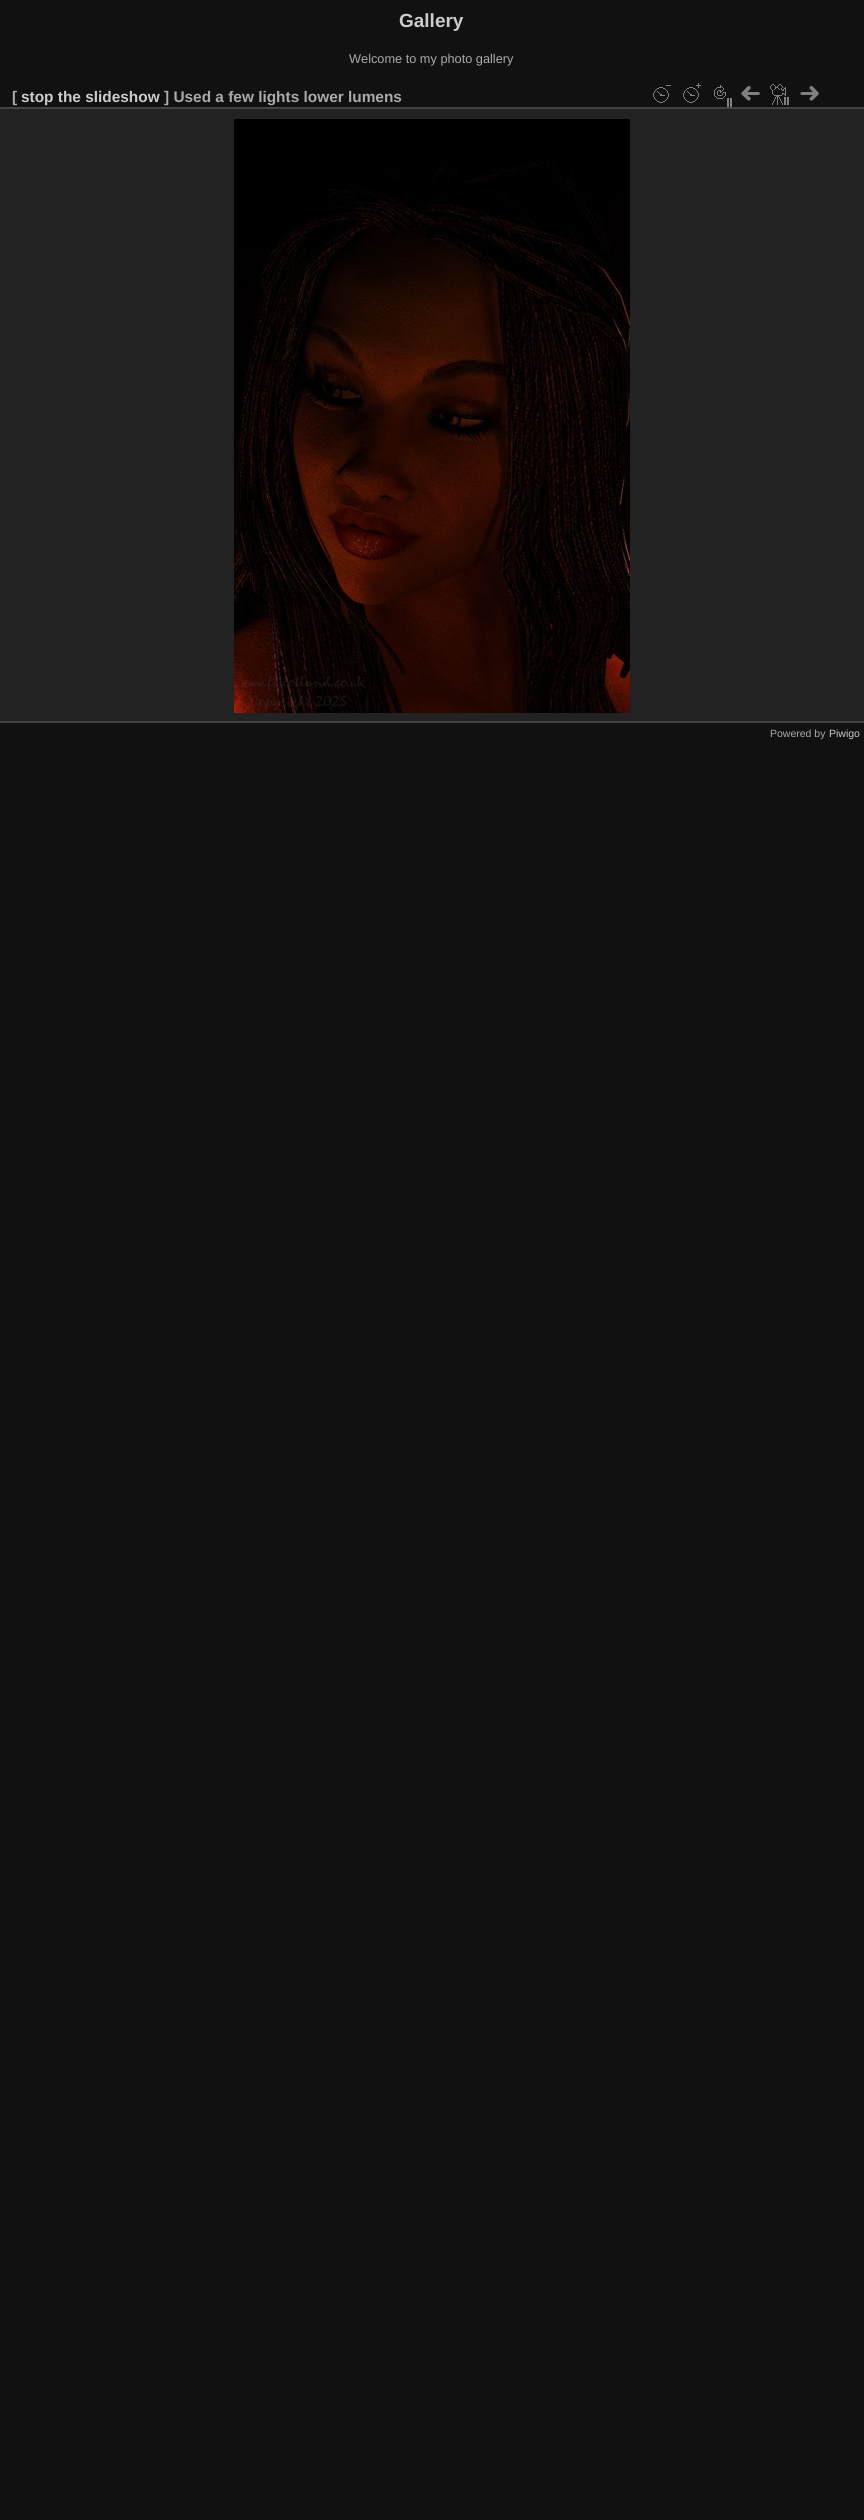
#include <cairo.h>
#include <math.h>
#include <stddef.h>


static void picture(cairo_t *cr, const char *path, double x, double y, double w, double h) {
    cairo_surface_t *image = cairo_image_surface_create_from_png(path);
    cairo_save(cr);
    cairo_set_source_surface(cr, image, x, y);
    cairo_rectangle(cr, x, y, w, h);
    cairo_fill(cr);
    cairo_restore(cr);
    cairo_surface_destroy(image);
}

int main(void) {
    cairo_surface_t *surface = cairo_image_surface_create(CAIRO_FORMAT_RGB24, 864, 2520);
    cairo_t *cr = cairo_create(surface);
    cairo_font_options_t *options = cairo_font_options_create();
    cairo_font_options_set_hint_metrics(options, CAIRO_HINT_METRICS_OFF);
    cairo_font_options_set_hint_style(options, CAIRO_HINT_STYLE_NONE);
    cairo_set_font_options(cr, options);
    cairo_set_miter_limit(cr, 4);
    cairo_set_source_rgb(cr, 0.067, 0.067, 0.067);
    cairo_paint(cr);
    cairo_select_font_face(cr, "Liberation Sans", CAIRO_FONT_SLANT_NORMAL, CAIRO_FONT_WEIGHT_BOLD);
    cairo_set_font_size(cr, 19);
    cairo_set_source_rgb(cr, 0.8, 0.8, 0.8);
    cairo_move_to(cr, 399, 27);
    cairo_show_text(cr, "Gallery");
    cairo_select_font_face(cr, "Liberation Sans", CAIRO_FONT_SLANT_NORMAL, CAIRO_FONT_WEIGHT_NORMAL);
    cairo_set_font_size(cr, 12.75);
    cairo_set_source_rgb(cr, 0.667, 0.667, 0.667);
    cairo_move_to(cr, 349, 63);
    cairo_show_text(cr, "Welcome to my photo gallery");
    cairo_set_source_rgb(cr, 0.267, 0.267, 0.267);
    cairo_rectangle(cr, 0, 107, 864, 2);
    cairo_fill(cr);
    cairo_select_font_face(cr, "Liberation Sans", CAIRO_FONT_SLANT_NORMAL, CAIRO_FONT_WEIGHT_BOLD);
    cairo_set_font_size(cr, 15.4);
    cairo_set_source_rgb(cr, 0.667, 0.667, 0.667);
    cairo_move_to(cr, 12, 102);
    cairo_show_text(cr, "[");
    cairo_set_source_rgb(cr, 0.8, 0.8, 0.8);
    cairo_move_to(cr, 21, 102);
    cairo_show_text(cr, "stop the slideshow");
    cairo_set_source_rgb(cr, 0.667, 0.667, 0.667);
    cairo_move_to(cr, 164, 102);
    cairo_show_text(cr, "] Used a few lights lower lumens");
    picture(cr, "img1.png", 653, 85, 18, 18);
    picture(cr, "img2.png", 683, 83, 18, 20);
    picture(cr, "img3.png", 714, 85, 18, 22);
    picture(cr, "img4.png", 741, 86, 19, 15);
    picture(cr, "img5.png", 770, 84, 19, 21);
    picture(cr, "img6.png", 800, 86, 19, 15);
    cairo_set_source_rgb(cr, 0.133, 0.133, 0.133);
    cairo_rectangle(cr, 0, 109, 864, 612);
    cairo_fill(cr);
    cairo_set_source_rgb(cr, 0.267, 0.267, 0.267);
    cairo_rectangle(cr, 0, 721, 864, 2);
    cairo_fill(cr);
    picture(cr, "img7.png", 234, 119, 396, 594);
    cairo_select_font_face(cr, "Liberation Sans", CAIRO_FONT_SLANT_NORMAL, CAIRO_FONT_WEIGHT_NORMAL);
    cairo_set_font_size(cr, 10.5);
    cairo_set_source_rgb(cr, 0.667, 0.667, 0.667);
    cairo_move_to(cr, 770, 737);
    cairo_show_text(cr, "Powered by");
    cairo_set_source_rgb(cr, 0.8, 0.8, 0.8);
    cairo_move_to(cr, 829, 737);
    cairo_show_text(cr, "Piwigo");
    cairo_surface_write_to_png(surface, "page.png");
    cairo_font_options_destroy(options);
    cairo_destroy(cr);
    cairo_surface_destroy(surface);
    return 0;
}
